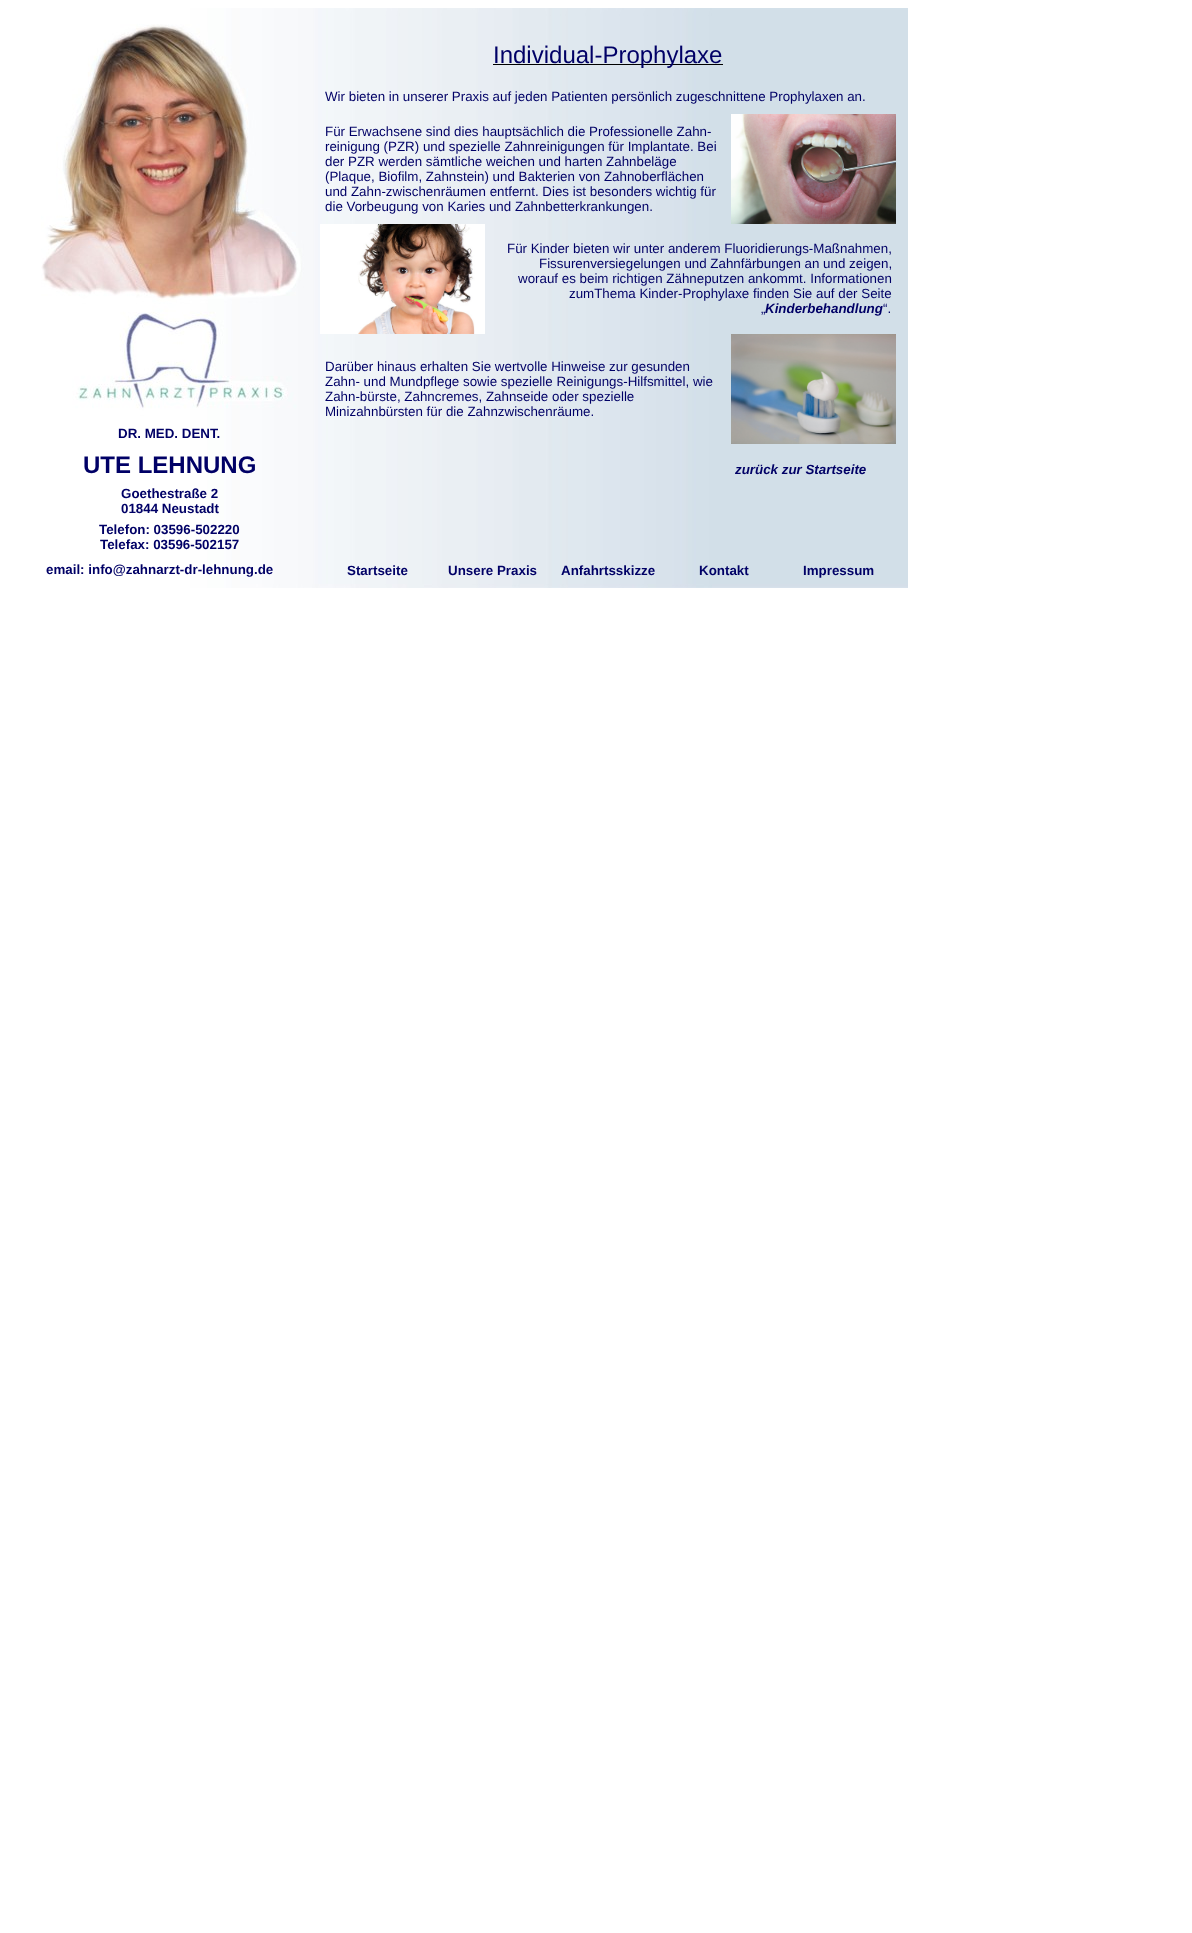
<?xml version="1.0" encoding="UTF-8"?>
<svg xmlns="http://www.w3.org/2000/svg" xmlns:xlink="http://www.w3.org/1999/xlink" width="1192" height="1933">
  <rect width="100%" height="100%" fill="#ffffff" />
  <image x="41" y="8" width="867" height="580" xlink:href="image1.png" />
  <rect x="493" y="64" width="230" height="1" fill="#000000" />
  <image x="731" y="114" width="165" height="110" xlink:href="image2.png" />
  <image x="320" y="224" width="165" height="110" xlink:href="image3.png" />
  <image x="731" y="334" width="165" height="110" xlink:href="image4.png" />
  <text x="118" y="438" style="font-family: Liberation Sans; font-size: 13.35px; font-weight: bold; fill: #000066">DR. MED. DENT.</text>
  <text x="83" y="473" style="font-family: Liberation Sans; font-size: 24px; font-weight: bold; fill: #000066">UTE LEHNUNG</text>
  <text x="121" y="498" style="font-family: Liberation Sans; font-size: 13.35px; font-weight: bold; fill: #000066">Goethestraße 2</text>
  <text x="121" y="513" style="font-family: Liberation Sans; font-size: 13.35px; font-weight: bold; fill: #000066">01844 Neustadt</text>
  <text x="99" y="534" style="font-family: Liberation Sans; font-size: 13.35px; font-weight: bold; fill: #000066">Telefon: 03596-502220</text>
  <text x="100" y="549" style="font-family: Liberation Sans; font-size: 13.35px; font-weight: bold; fill: #000066">Telefax: 03596-502157</text>
  <text x="46" y="574" style="font-family: Liberation Sans; font-size: 13.35px; font-weight: bold; fill: #000066">email: info@zahnarzt-dr-lehnung.de</text>
  <text x="493" y="63" style="font-family: Liberation Sans; font-size: 24px; fill: #000066">Individual-Prophylaxe</text>
  <text x="325" y="101" style="font-family: Liberation Sans; font-size: 13.35px; fill: #000066">Wir bieten in unserer Praxis auf jeden Patienten persönlich zugeschnittene Prophylaxen an.</text>
  <text x="325" y="136" style="font-family: Liberation Sans; font-size: 13.35px; fill: #000066">Für Erwachsene sind dies hauptsächlich die Professionelle Zahn-</text>
  <text x="325" y="151" style="font-family: Liberation Sans; font-size: 13.35px; fill: #000066">reinigung (PZR) und spezielle Zahnreinigungen für Implantate. Bei</text>
  <text x="325" y="166" style="font-family: Liberation Sans; font-size: 13.35px; fill: #000066">der PZR werden sämtliche weichen und harten Zahnbeläge</text>
  <text x="325" y="181" style="font-family: Liberation Sans; font-size: 13.35px; fill: #000066">(Plaque, Biofilm, Zahnstein) und Bakterien von Zahnoberflächen</text>
  <text x="325" y="196" style="font-family: Liberation Sans; font-size: 13.35px; fill: #000066">und Zahn-zwischenräumen entfernt. Dies ist besonders wichtig für</text>
  <text x="325" y="211" style="font-family: Liberation Sans; font-size: 13.35px; fill: #000066">die Vorbeugung von Karies und Zahnbetterkrankungen.</text>
  <text x="507" y="253" style="font-family: Liberation Sans; font-size: 13.35px; fill: #000066">Für Kinder bieten wir unter anderem Fluoridierungs-Maßnahmen,</text>
  <text x="539" y="268" style="font-family: Liberation Sans; font-size: 13.35px; fill: #000066">Fissurenversiegelungen und Zahnfärbungen an und zeigen,</text>
  <text x="518" y="283" style="font-family: Liberation Sans; font-size: 13.35px; fill: #000066">worauf es beim richtigen Zähneputzen ankommt. Informationen</text>
  <text x="569" y="298" style="font-family: Liberation Sans; font-size: 13.35px; fill: #000066">zumThema Kinder-Prophylaxe finden Sie auf der Seite</text>
  <text x="761" y="313" style="font-family: Liberation Sans; font-size: 13.35px; fill: #000066">„</text>
  <text x="765" y="313" style="font-family: Liberation Sans; font-size: 13.35px; font-weight: bold; font-style: italic; fill: #000066">Kinderbehandlung</text>
  <text x="883" y="313" style="font-family: Liberation Sans; font-size: 13.35px; fill: #000066">“.</text>
  <text x="325" y="371" style="font-family: Liberation Sans; font-size: 13.35px; fill: #000066">Darüber hinaus erhalten Sie wertvolle Hinweise zur gesunden</text>
  <text x="325" y="386" style="font-family: Liberation Sans; font-size: 13.35px; fill: #000066">Zahn- und Mundpflege sowie spezielle Reinigungs-Hilfsmittel, wie</text>
  <text x="325" y="401" style="font-family: Liberation Sans; font-size: 13.35px; fill: #000066">Zahn-bürste, Zahncremes, Zahnseide oder spezielle</text>
  <text x="325" y="416" style="font-family: Liberation Sans; font-size: 13.35px; fill: #000066">Minizahnbürsten für die Zahnzwischenräume.</text>
  <text x="735" y="474" style="font-family: Liberation Sans; font-size: 13.35px; font-weight: bold; font-style: italic; fill: #000066">zurück zur Startseite</text>
  <text x="347" y="575" style="font-family: Liberation Sans; font-size: 13.35px; font-weight: bold; fill: #000066">Startseite</text>
  <text x="448" y="575" style="font-family: Liberation Sans; font-size: 13.35px; font-weight: bold; fill: #000066">Unsere Praxis</text>
  <text x="561" y="575" style="font-family: Liberation Sans; font-size: 13.35px; font-weight: bold; fill: #000066">Anfahrtsskizze</text>
  <text x="699" y="575" style="font-family: Liberation Sans; font-size: 13.35px; font-weight: bold; fill: #000066">Kontakt</text>
  <text x="803" y="575" style="font-family: Liberation Sans; font-size: 13.35px; font-weight: bold; fill: #000066">Impressum</text>
</svg>
